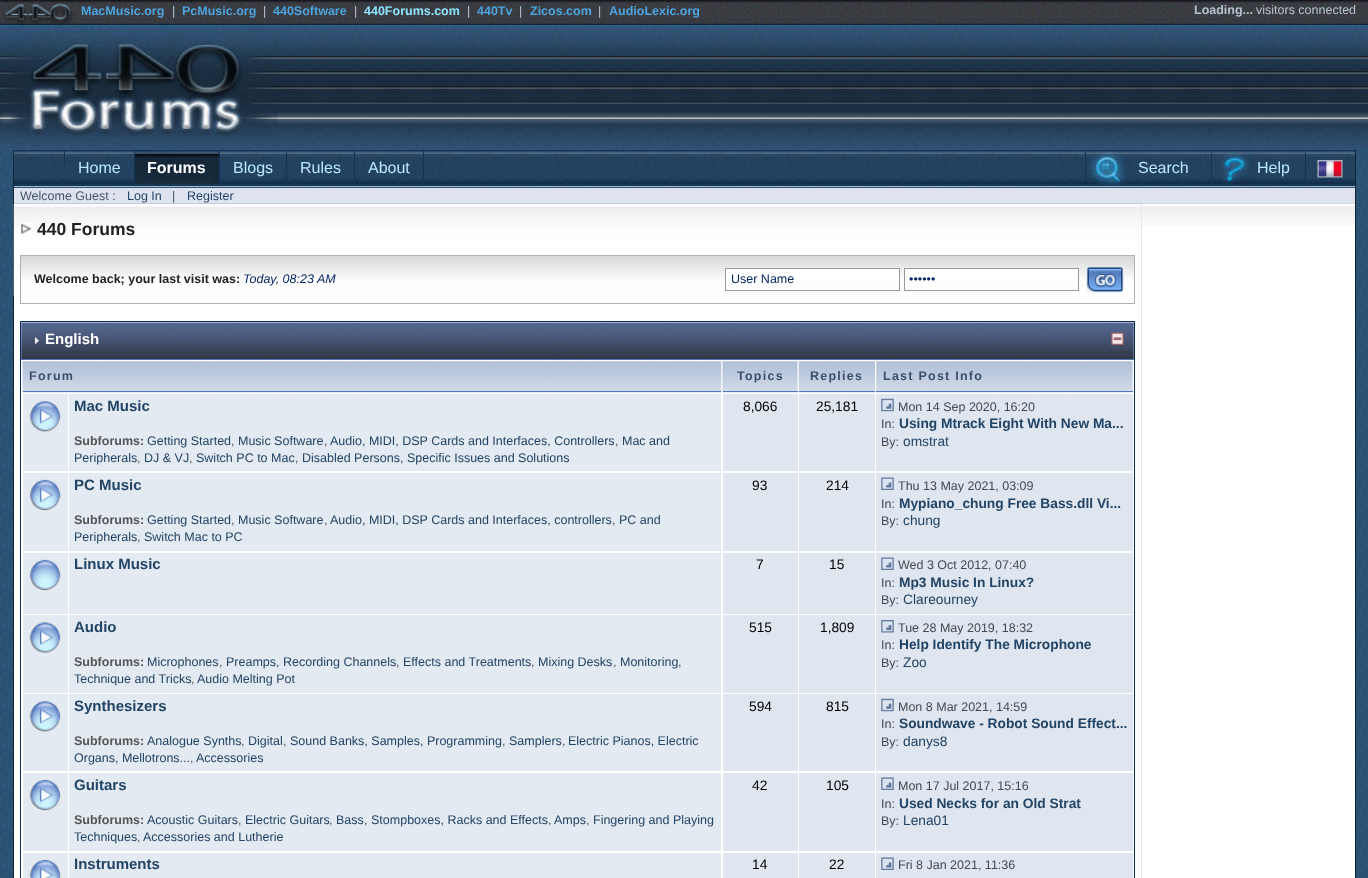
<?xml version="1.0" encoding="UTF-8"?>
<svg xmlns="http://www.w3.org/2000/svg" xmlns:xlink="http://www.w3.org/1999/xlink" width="1368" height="878">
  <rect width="100%" height="100%" fill="#ffffff" />
  <image x="0" y="150" width="1368" height="728" xlink:href="image1.png" />
  <image x="0" y="0" width="1368" height="25" xlink:href="image2.png" />
  <image x="0" y="0" width="75" height="24" xlink:href="image3.png" />
  <image x="277" y="25" width="1091" height="125" xlink:href="image4.png" />
  <image x="0" y="25" width="278" height="125" xlink:href="image5.png" />
  <rect x="1355" y="150" width="1" height="728" fill="#112233" />
  <rect x="13" y="150" width="1" height="728" fill="#112233" />
  <image x="13" y="151" width="1342" height="34" xlink:href="image6.png" />
  <rect x="14" y="150" width="1341" height="1" fill="#113355" />
  <rect x="14" y="185" width="1341" height="1" fill="#113355" />
  <rect x="64" y="151" width="1" height="14" fill="#113355" />
  <rect x="134" y="151" width="1" height="33" fill="#113355" />
  <image x="135" y="151" width="84" height="33" xlink:href="image7.png" />
  <rect x="219" y="151" width="1" height="33" fill="#113355" />
  <rect x="286" y="151" width="1" height="33" fill="#113355" />
  <rect x="354" y="151" width="1" height="33" fill="#113355" />
  <rect x="423" y="151" width="1" height="33" fill="#113355" />
  <rect x="1211" y="151" width="1" height="34" fill="#113355" />
  <rect x="1085" y="151" width="1" height="34" fill="#113355" />
  <image x="1086" y="151" width="126" height="34" xlink:href="image8.png" />
  <rect x="1305" y="151" width="1" height="34" fill="#113355" />
  <image x="1213" y="151" width="92" height="34" xlink:href="image9.png" />
  <image x="1317" y="160" width="26" height="18" xlink:href="image10.png" />
  <rect x="14" y="188" width="1341" height="15" fill="#dfe3ef" />
  <rect x="14" y="186" width="1341" height="1" fill="#aabbcc" />
  <rect x="14" y="203" width="1341" height="1" fill="#aabbcc" />
  <rect x="14" y="296" width="1127" height="582" fill="#ffffff" />
  <image x="13" y="203" width="1342" height="94" xlink:href="image11.png" />
  <image x="20" y="223" width="12" height="11" xlink:href="image12.png" />
  <image x="21" y="256" width="1113" height="47" xlink:href="image13.png" />
  <rect x="20.5" y="255.5" width="1114" height="48" fill="none" stroke="#b0b0b0" />
  <rect x="726" y="269" width="173" height="12" fill="#ffffff" />
  <rect x="725.5" y="268.5" width="174" height="22" fill="none" stroke="#999999" />
  <rect x="905" y="269" width="173" height="12" fill="#ffffff" />
  <rect x="904.5" y="268.5" width="174" height="22" fill="none" stroke="#999999" />
  <image x="1086" y="266" width="38" height="27" xlink:href="image14.png" />
  <rect x="20.5" y="321.5" width="1114" height="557" fill="none" stroke="#072a66" />
  <image x="21" y="322" width="1113" height="37" xlink:href="image15.png" />
  <rect x="21" y="359" width="1113" height="1" fill="#5176b5" />
  <image x="34" y="337" width="5" height="7" xlink:href="image16.png" />
  <image x="1111" y="332" width="13" height="13" xlink:href="image17.png" />
  <image x="22" y="361" width="700" height="32" xlink:href="image18.png" />
  <rect x="23" y="391" width="698" height="1" fill="#5176b5" />
  <image x="722" y="361" width="76" height="32" xlink:href="image19.png" />
  <rect x="723" y="391" width="75" height="1" fill="#5176b5" />
  <image x="798" y="361" width="77" height="32" xlink:href="image20.png" />
  <rect x="799" y="391" width="76" height="1" fill="#5176b5" />
  <image x="876" y="361" width="257" height="32" xlink:href="image21.png" />
  <rect x="876" y="391" width="257" height="1" fill="#5176b5" />
  <rect x="23" y="394" width="45" height="77" fill="#e4eaf2" />
  <image x="29" y="401" width="32" height="31" xlink:href="image22.png" />
  <rect x="69" y="394" width="652" height="77" fill="#e4eaf2" />
  <rect x="723" y="394" width="75" height="77" fill="#dfe6ef" />
  <rect x="799" y="394" width="76" height="77" fill="#dfe6ef" />
  <rect x="876" y="394" width="257" height="77" fill="#dfe6ef" />
  <image x="881" y="398" width="13" height="14" xlink:href="image23.png" />
  <rect x="23" y="473" width="45" height="78" fill="#e4eaf2" />
  <image x="29" y="479" width="32" height="32" xlink:href="image24.png" />
  <rect x="69" y="473" width="652" height="78" fill="#e4eaf2" />
  <rect x="723" y="473" width="75" height="78" fill="#dfe6ef" />
  <rect x="799" y="473" width="76" height="78" fill="#dfe6ef" />
  <rect x="876" y="473" width="257" height="78" fill="#dfe6ef" />
  <image x="881" y="477" width="13" height="13" xlink:href="image25.png" />
  <rect x="23" y="553" width="45" height="61" fill="#e4eaf2" />
  <image x="29" y="559" width="32" height="32" xlink:href="image26.png" />
  <rect x="69" y="553" width="652" height="61" fill="#e4eaf2" />
  <rect x="723" y="553" width="75" height="61" fill="#dfe6ef" />
  <rect x="799" y="553" width="76" height="61" fill="#dfe6ef" />
  <rect x="876" y="553" width="257" height="61" fill="#dfe6ef" />
  <image x="881" y="557" width="13" height="13" xlink:href="image25.png" />
  <rect x="23" y="615" width="45" height="78" fill="#e4eaf2" />
  <image x="29" y="622" width="32" height="31" xlink:href="image27.png" />
  <rect x="69" y="615" width="652" height="78" fill="#e4eaf2" />
  <rect x="723" y="615" width="75" height="78" fill="#dfe6ef" />
  <rect x="799" y="615" width="76" height="78" fill="#dfe6ef" />
  <rect x="876" y="615" width="257" height="78" fill="#dfe6ef" />
  <image x="881" y="620" width="13" height="13" xlink:href="image28.png" />
  <rect x="23" y="694" width="45" height="77" fill="#e4eaf2" />
  <image x="29" y="701" width="32" height="31" xlink:href="image22.png" />
  <rect x="69" y="694" width="652" height="77" fill="#e4eaf2" />
  <rect x="723" y="694" width="75" height="77" fill="#dfe6ef" />
  <rect x="799" y="694" width="76" height="77" fill="#dfe6ef" />
  <rect x="876" y="694" width="257" height="77" fill="#dfe6ef" />
  <image x="881" y="698" width="13" height="14" xlink:href="image23.png" />
  <rect x="23" y="773" width="45" height="78" fill="#e4eaf2" />
  <image x="29" y="779" width="32" height="32" xlink:href="image29.png" />
  <rect x="69" y="773" width="652" height="78" fill="#e4eaf2" />
  <rect x="723" y="773" width="75" height="78" fill="#dfe6ef" />
  <rect x="799" y="773" width="76" height="78" fill="#dfe6ef" />
  <rect x="876" y="773" width="257" height="78" fill="#dfe6ef" />
  <image x="881" y="777" width="13" height="13" xlink:href="image30.png" />
  <rect x="23" y="853" width="45" height="25" fill="#e4eaf2" />
  <image x="29" y="859" width="32" height="19" xlink:href="image31.png" />
  <rect x="69" y="853" width="652" height="25" fill="#e4eaf2" />
  <rect x="723" y="853" width="75" height="25" fill="#dfe6ef" />
  <rect x="799" y="853" width="76" height="25" fill="#dfe6ef" />
  <rect x="876" y="853" width="257" height="25" fill="#dfe6ef" />
  <image x="881" y="857" width="13" height="13" xlink:href="image25.png" />
  <rect x="1142" y="227" width="213" height="651" fill="#ffffff" />
  <image x="1141" y="203" width="214" height="24" xlink:href="image32.png" />
  <rect x="1141" y="204" width="1" height="674" fill="#e5e5ef" />
  <text x="81" y="15" style="font-family: Liberation Sans; font-size: 12.5px; font-weight: bold; fill: #4ea4de">MacMusic.org</text>
  <text x="172" y="15" style="font-family: Liberation Sans; font-size: 12.5px; fill: #b7c3d1">|</text>
  <text x="182" y="15" style="font-family: Liberation Sans; font-size: 12.5px; font-weight: bold; fill: #4ea4de">PcMusic.org</text>
  <text x="263" y="15" style="font-family: Liberation Sans; font-size: 12.5px; fill: #b7c3d1">|</text>
  <text x="273" y="15" style="font-family: Liberation Sans; font-size: 12.5px; font-weight: bold; fill: #4ea4de">440Software</text>
  <text x="354" y="15" style="font-family: Liberation Sans; font-size: 12.5px; fill: #b7c3d1">|</text>
  <text x="364" y="15" style="font-family: Liberation Sans; font-size: 12.5px; font-weight: bold; fill: #8ee4ff">440Forums.com</text>
  <text x="467" y="15" style="font-family: Liberation Sans; font-size: 12.5px; fill: #b7c3d1">|</text>
  <text x="477" y="15" style="font-family: Liberation Sans; font-size: 12.5px; font-weight: bold; fill: #4ea4de">440Tv</text>
  <text x="519" y="15" style="font-family: Liberation Sans; font-size: 12.5px; fill: #b7c3d1">|</text>
  <text x="530" y="15" style="font-family: Liberation Sans; font-size: 12.5px; font-weight: bold; fill: #4ea4de">Zicos.com</text>
  <text x="598" y="15" style="font-family: Liberation Sans; font-size: 12.5px; fill: #b7c3d1">|</text>
  <text x="609" y="15" style="font-family: Liberation Sans; font-size: 12.5px; font-weight: bold; fill: #4ea4de">AudioLexic.org</text>
  <text x="1194" y="14" style="font-family: Liberation Sans; font-size: 12.5px; font-weight: bold; fill: #b7c3d1">Loading...</text>
  <text x="1256" y="14" style="font-family: Liberation Sans; font-size: 12.5px; fill: #b7c3d1">visitors connected</text>
  <text x="78" y="173" style="font-family: Liberation Sans; font-size: 16px; fill: #b9e8ff">Home</text>
  <text x="147" y="173" style="font-family: Liberation Sans; font-size: 16px; font-weight: bold; fill: #ffffff">Forums</text>
  <text x="233" y="173" style="font-family: Liberation Sans; font-size: 16px; fill: #b9e8ff">Blogs</text>
  <text x="300" y="173" style="font-family: Liberation Sans; font-size: 16px; fill: #b9e8ff">Rules</text>
  <text x="368" y="173" style="font-family: Liberation Sans; font-size: 16px; fill: #b9e8ff">About</text>
  <text x="1138" y="173" style="font-family: Liberation Sans; font-size: 16px; fill: #b9e8ff">Search</text>
  <text x="1257" y="173" style="font-family: Liberation Sans; font-size: 16px; fill: #b9e8ff">Help</text>
  <text x="20" y="200" style="font-family: Liberation Sans; font-size: 12.5px; fill: #445566">Welcome Guest :</text>
  <text x="127" y="200" style="font-family: Liberation Sans; font-size: 12.5px; fill: #224466">Log In</text>
  <text x="172" y="200" style="font-family: Liberation Sans; font-size: 12.5px; fill: #445566">|</text>
  <text x="187" y="200" style="font-family: Liberation Sans; font-size: 12.5px; fill: #224466">Register</text>
  <text x="37" y="235" style="font-family: Liberation Sans; font-size: 17.5px; font-weight: bold; fill: #222222">440 Forums</text>
  <text x="34" y="283" style="font-family: Liberation Sans; font-size: 12.5px; font-weight: bold; fill: #222222">Welcome back; your last visit was:</text>
  <text x="243" y="283" style="font-family: Liberation Sans; font-size: 12.5px; font-style: italic; fill: #072a66">Today, 08:23 AM</text>
  <text x="731" y="283" style="font-family: Liberation Sans; font-size: 12.5px; fill: #072a66">User Name</text>
  <text x="909" y="283" style="font-family: Liberation Sans; font-size: 12.5px; fill: #072a66">••••••</text>
  <text x="45" y="344" style="font-family: Liberation Sans; font-size: 15px; font-weight: bold; fill: #ffffff">English</text>
  <text x="29" y="380" style="font-family: Liberation Sans; font-size: 12.5px; font-weight: bold; letter-spacing: 1.25px; fill: #3a4f6c">Forum</text>
  <text x="737" y="380" style="font-family: Liberation Sans; font-size: 12.5px; font-weight: bold; letter-spacing: 1.25px; fill: #3a4f6c">Topics</text>
  <text x="810" y="380" style="font-family: Liberation Sans; font-size: 12.5px; font-weight: bold; letter-spacing: 1.25px; fill: #3a4f6c">Replies</text>
  <text x="883" y="380" style="font-family: Liberation Sans; font-size: 12.5px; font-weight: bold; letter-spacing: 1.25px; fill: #3a4f6c">Last Post Info</text>
  <text x="74" y="411" style="font-family: Liberation Sans; font-size: 15px; font-weight: bold; fill: #224466">Mac Music</text>
  <text x="74" y="445" style="font-family: Liberation Sans; font-size: 12.5px; font-weight: bold; fill: #555555">Subforums:</text>
  <text x="147" y="445" style="font-family: Liberation Sans; font-size: 12.5px; fill: #224466">Getting Started</text>
  <text x="231" y="445" style="font-family: Liberation Sans; font-size: 12.5px; fill: #555555">,</text>
  <text x="238" y="445" style="font-family: Liberation Sans; font-size: 12.5px; fill: #224466">Music Software</text>
  <text x="324" y="445" style="font-family: Liberation Sans; font-size: 12.5px; fill: #555555">,</text>
  <text x="330" y="445" style="font-family: Liberation Sans; font-size: 12.5px; fill: #224466">Audio, MIDI, DSP Cards and Interfaces, Controllers</text>
  <text x="615" y="445" style="font-family: Liberation Sans; font-size: 12.5px; fill: #555555">,</text>
  <text x="622" y="445" style="font-family: Liberation Sans; font-size: 12.5px; fill: #224466">Mac and</text>
  <text x="74" y="462" style="font-family: Liberation Sans; font-size: 12.5px; fill: #224466">Peripherals</text>
  <text x="137" y="462" style="font-family: Liberation Sans; font-size: 12.5px; fill: #555555">,</text>
  <text x="144" y="462" style="font-family: Liberation Sans; font-size: 12.5px; fill: #224466">DJ &amp; VJ</text>
  <text x="189" y="462" style="font-family: Liberation Sans; font-size: 12.5px; fill: #555555">,</text>
  <text x="196" y="462" style="font-family: Liberation Sans; font-size: 12.5px; fill: #224466">Switch PC to Mac</text>
  <text x="295" y="462" style="font-family: Liberation Sans; font-size: 12.5px; fill: #555555">,</text>
  <text x="302" y="462" style="font-family: Liberation Sans; font-size: 12.5px; fill: #224466">Disabled Persons, Specific Issues and Solutions</text>
  <text x="743" y="411" style="font-family: Liberation Sans; font-size: 13.75px; fill: #000000">8,066</text>
  <text x="816" y="411" style="font-family: Liberation Sans; font-size: 13.75px; fill: #000000">25,181</text>
  <text x="898" y="411" style="font-family: Liberation Sans; font-size: 12.5px; fill: #434951">Mon 14 Sep 2020, 16:20</text>
  <text x="881" y="428" style="font-family: Liberation Sans; font-size: 12.5px; fill: #434951">In:</text>
  <text x="899" y="428" style="font-family: Liberation Sans; font-size: 13.75px; font-weight: bold; fill: #224466">Using Mtrack Eight With New Ma...</text>
  <text x="881" y="446" style="font-family: Liberation Sans; font-size: 12.5px; fill: #434951">By:</text>
  <text x="903" y="446" style="font-family: Liberation Sans; font-size: 13.75px; fill: #224466">omstrat</text>
  <text x="74" y="490" style="font-family: Liberation Sans; font-size: 15px; font-weight: bold; fill: #224466">PC Music</text>
  <text x="74" y="524" style="font-family: Liberation Sans; font-size: 12.5px; font-weight: bold; fill: #555555">Subforums:</text>
  <text x="147" y="524" style="font-family: Liberation Sans; font-size: 12.5px; fill: #224466">Getting Started</text>
  <text x="231" y="524" style="font-family: Liberation Sans; font-size: 12.5px; fill: #555555">,</text>
  <text x="238" y="524" style="font-family: Liberation Sans; font-size: 12.5px; fill: #224466">Music Software</text>
  <text x="324" y="524" style="font-family: Liberation Sans; font-size: 12.5px; fill: #555555">,</text>
  <text x="330" y="524" style="font-family: Liberation Sans; font-size: 12.5px; fill: #224466">Audio, MIDI, DSP Cards and Interfaces, controllers</text>
  <text x="612" y="524" style="font-family: Liberation Sans; font-size: 12.5px; fill: #555555">,</text>
  <text x="619" y="524" style="font-family: Liberation Sans; font-size: 12.5px; fill: #224466">PC and</text>
  <text x="74" y="541" style="font-family: Liberation Sans; font-size: 12.5px; fill: #224466">Peripherals</text>
  <text x="137" y="541" style="font-family: Liberation Sans; font-size: 12.5px; fill: #555555">,</text>
  <text x="144" y="541" style="font-family: Liberation Sans; font-size: 12.5px; fill: #224466">Switch Mac to PC</text>
  <text x="752" y="490" style="font-family: Liberation Sans; font-size: 13.75px; fill: #000000">93</text>
  <text x="826" y="490" style="font-family: Liberation Sans; font-size: 13.75px; fill: #000000">214</text>
  <text x="898" y="490" style="font-family: Liberation Sans; font-size: 12.5px; fill: #434951">Thu 13 May 2021, 03:09</text>
  <text x="881" y="508" style="font-family: Liberation Sans; font-size: 12.5px; fill: #434951">In:</text>
  <text x="899" y="508" style="font-family: Liberation Sans; font-size: 13.75px; font-weight: bold; fill: #224466">Mypiano_chung Free Bass.dll Vi...</text>
  <text x="881" y="525" style="font-family: Liberation Sans; font-size: 12.5px; fill: #434951">By:</text>
  <text x="903" y="525" style="font-family: Liberation Sans; font-size: 13.75px; fill: #224466">chung</text>
  <text x="74" y="569" style="font-family: Liberation Sans; font-size: 15px; font-weight: bold; fill: #224466">Linux Music</text>
  <text x="756" y="569" style="font-family: Liberation Sans; font-size: 13.75px; fill: #000000">7</text>
  <text x="829" y="569" style="font-family: Liberation Sans; font-size: 13.75px; fill: #000000">15</text>
  <text x="898" y="569" style="font-family: Liberation Sans; font-size: 12.5px; fill: #434951">Wed 3 Oct 2012, 07:40</text>
  <text x="881" y="587" style="font-family: Liberation Sans; font-size: 12.5px; fill: #434951">In:</text>
  <text x="899" y="587" style="font-family: Liberation Sans; font-size: 13.75px; font-weight: bold; fill: #224466">Mp3 Music In Linux?</text>
  <text x="881" y="604" style="font-family: Liberation Sans; font-size: 12.5px; fill: #434951">By:</text>
  <text x="903" y="604" style="font-family: Liberation Sans; font-size: 13.75px; fill: #224466">Clareourney</text>
  <text x="74" y="632" style="font-family: Liberation Sans; font-size: 15px; font-weight: bold; fill: #224466">Audio</text>
  <text x="74" y="666" style="font-family: Liberation Sans; font-size: 12.5px; font-weight: bold; fill: #555555">Subforums:</text>
  <text x="147" y="666" style="font-family: Liberation Sans; font-size: 12.5px; fill: #224466">Microphones</text>
  <text x="219" y="666" style="font-family: Liberation Sans; font-size: 12.5px; fill: #555555">,</text>
  <text x="226" y="666" style="font-family: Liberation Sans; font-size: 12.5px; fill: #224466">Preamps, Recording Channels</text>
  <text x="396" y="666" style="font-family: Liberation Sans; font-size: 12.5px; fill: #555555">,</text>
  <text x="403" y="666" style="font-family: Liberation Sans; font-size: 12.5px; fill: #224466">Effects and Treatments</text>
  <text x="531" y="666" style="font-family: Liberation Sans; font-size: 12.5px; fill: #555555">,</text>
  <text x="538" y="666" style="font-family: Liberation Sans; font-size: 12.5px; fill: #224466">Mixing Desks</text>
  <text x="613" y="666" style="font-family: Liberation Sans; font-size: 12.5px; fill: #555555">,</text>
  <text x="620" y="666" style="font-family: Liberation Sans; font-size: 12.5px; fill: #224466">Monitoring</text>
  <text x="678" y="666" style="font-family: Liberation Sans; font-size: 12.5px; fill: #555555">,</text>
  <text x="74" y="683" style="font-family: Liberation Sans; font-size: 12.5px; fill: #224466">Technique and Tricks</text>
  <text x="191" y="683" style="font-family: Liberation Sans; font-size: 12.5px; fill: #555555">,</text>
  <text x="197" y="683" style="font-family: Liberation Sans; font-size: 12.5px; fill: #224466">Audio Melting Pot</text>
  <text x="749" y="632" style="font-family: Liberation Sans; font-size: 13.75px; fill: #000000">515</text>
  <text x="820" y="632" style="font-family: Liberation Sans; font-size: 13.75px; fill: #000000">1,809</text>
  <text x="898" y="632" style="font-family: Liberation Sans; font-size: 12.5px; fill: #434951">Tue 28 May 2019, 18:32</text>
  <text x="881" y="649" style="font-family: Liberation Sans; font-size: 12.5px; fill: #434951">In:</text>
  <text x="899" y="649" style="font-family: Liberation Sans; font-size: 13.75px; font-weight: bold; fill: #224466">Help Identify The Microphone</text>
  <text x="881" y="667" style="font-family: Liberation Sans; font-size: 12.5px; fill: #434951">By:</text>
  <text x="903" y="667" style="font-family: Liberation Sans; font-size: 13.75px; fill: #224466">Zoo</text>
  <text x="74" y="711" style="font-family: Liberation Sans; font-size: 15px; font-weight: bold; fill: #224466">Synthesizers</text>
  <text x="74" y="745" style="font-family: Liberation Sans; font-size: 12.5px; font-weight: bold; fill: #555555">Subforums:</text>
  <text x="147" y="745" style="font-family: Liberation Sans; font-size: 12.5px; fill: #224466">Analogue Synths</text>
  <text x="241" y="745" style="font-family: Liberation Sans; font-size: 12.5px; fill: #555555">,</text>
  <text x="248" y="745" style="font-family: Liberation Sans; font-size: 12.5px; fill: #224466">Digital</text>
  <text x="283" y="745" style="font-family: Liberation Sans; font-size: 12.5px; fill: #555555">,</text>
  <text x="290" y="745" style="font-family: Liberation Sans; font-size: 12.5px; fill: #224466">Sound Banks, Samples, Programming</text>
  <text x="502" y="745" style="font-family: Liberation Sans; font-size: 12.5px; fill: #555555">,</text>
  <text x="509" y="745" style="font-family: Liberation Sans; font-size: 12.5px; fill: #224466">Samplers</text>
  <text x="562" y="745" style="font-family: Liberation Sans; font-size: 12.5px; fill: #555555">,</text>
  <text x="568" y="745" style="font-family: Liberation Sans; font-size: 12.5px; fill: #224466">Electric Pianos, Electric</text>
  <text x="74" y="762" style="font-family: Liberation Sans; font-size: 12.5px; fill: #224466">Organs, Mellotrons...</text>
  <text x="190" y="762" style="font-family: Liberation Sans; font-size: 12.5px; fill: #555555">,</text>
  <text x="196" y="762" style="font-family: Liberation Sans; font-size: 12.5px; fill: #224466">Accessories</text>
  <text x="749" y="711" style="font-family: Liberation Sans; font-size: 13.75px; fill: #000000">594</text>
  <text x="826" y="711" style="font-family: Liberation Sans; font-size: 13.75px; fill: #000000">815</text>
  <text x="898" y="711" style="font-family: Liberation Sans; font-size: 12.5px; fill: #434951">Mon 8 Mar 2021, 14:59</text>
  <text x="881" y="728" style="font-family: Liberation Sans; font-size: 12.5px; fill: #434951">In:</text>
  <text x="899" y="728" style="font-family: Liberation Sans; font-size: 13.75px; font-weight: bold; fill: #224466">Soundwave - Robot Sound Effect...</text>
  <text x="881" y="746" style="font-family: Liberation Sans; font-size: 12.5px; fill: #434951">By:</text>
  <text x="903" y="746" style="font-family: Liberation Sans; font-size: 13.75px; fill: #224466">danys8</text>
  <text x="74" y="790" style="font-family: Liberation Sans; font-size: 15px; font-weight: bold; fill: #224466">Guitars</text>
  <text x="74" y="824" style="font-family: Liberation Sans; font-size: 12.5px; font-weight: bold; fill: #555555">Subforums:</text>
  <text x="147" y="824" style="font-family: Liberation Sans; font-size: 12.5px; fill: #224466">Acoustic Guitars</text>
  <text x="238" y="824" style="font-family: Liberation Sans; font-size: 12.5px; fill: #555555">,</text>
  <text x="245" y="824" style="font-family: Liberation Sans; font-size: 12.5px; fill: #224466">Electric Guitars</text>
  <text x="329" y="824" style="font-family: Liberation Sans; font-size: 12.5px; fill: #555555">,</text>
  <text x="336" y="824" style="font-family: Liberation Sans; font-size: 12.5px; fill: #224466">Bass</text>
  <text x="364" y="824" style="font-family: Liberation Sans; font-size: 12.5px; fill: #555555">,</text>
  <text x="371" y="824" style="font-family: Liberation Sans; font-size: 12.5px; fill: #224466">Stompboxes, Racks and Effects</text>
  <text x="548" y="824" style="font-family: Liberation Sans; font-size: 12.5px; fill: #555555">,</text>
  <text x="554" y="824" style="font-family: Liberation Sans; font-size: 12.5px; fill: #224466">Amps</text>
  <text x="586" y="824" style="font-family: Liberation Sans; font-size: 12.5px; fill: #555555">,</text>
  <text x="593" y="824" style="font-family: Liberation Sans; font-size: 12.5px; fill: #224466">Fingering and Playing</text>
  <text x="74" y="841" style="font-family: Liberation Sans; font-size: 12.5px; fill: #224466">Techniques</text>
  <text x="137" y="841" style="font-family: Liberation Sans; font-size: 12.5px; fill: #555555">,</text>
  <text x="143" y="841" style="font-family: Liberation Sans; font-size: 12.5px; fill: #224466">Accessories and Lutherie</text>
  <text x="752" y="790" style="font-family: Liberation Sans; font-size: 13.75px; fill: #000000">42</text>
  <text x="826" y="790" style="font-family: Liberation Sans; font-size: 13.75px; fill: #000000">105</text>
  <text x="898" y="790" style="font-family: Liberation Sans; font-size: 12.5px; fill: #434951">Mon 17 Jul 2017, 15:16</text>
  <text x="881" y="808" style="font-family: Liberation Sans; font-size: 12.5px; fill: #434951">In:</text>
  <text x="899" y="808" style="font-family: Liberation Sans; font-size: 13.75px; font-weight: bold; fill: #224466">Used Necks for an Old Strat</text>
  <text x="881" y="825" style="font-family: Liberation Sans; font-size: 12.5px; fill: #434951">By:</text>
  <text x="903" y="825" style="font-family: Liberation Sans; font-size: 13.75px; fill: #224466">Lena01</text>
  <text x="74" y="869" style="font-family: Liberation Sans; font-size: 15px; font-weight: bold; fill: #224466">Instruments</text>
  <text x="752" y="869" style="font-family: Liberation Sans; font-size: 13.75px; fill: #000000">14</text>
  <text x="829" y="869" style="font-family: Liberation Sans; font-size: 13.75px; fill: #000000">22</text>
  <text x="898" y="869" style="font-family: Liberation Sans; font-size: 12.5px; fill: #434951">Fri 8 Jan 2021, 11:36</text>
</svg>
